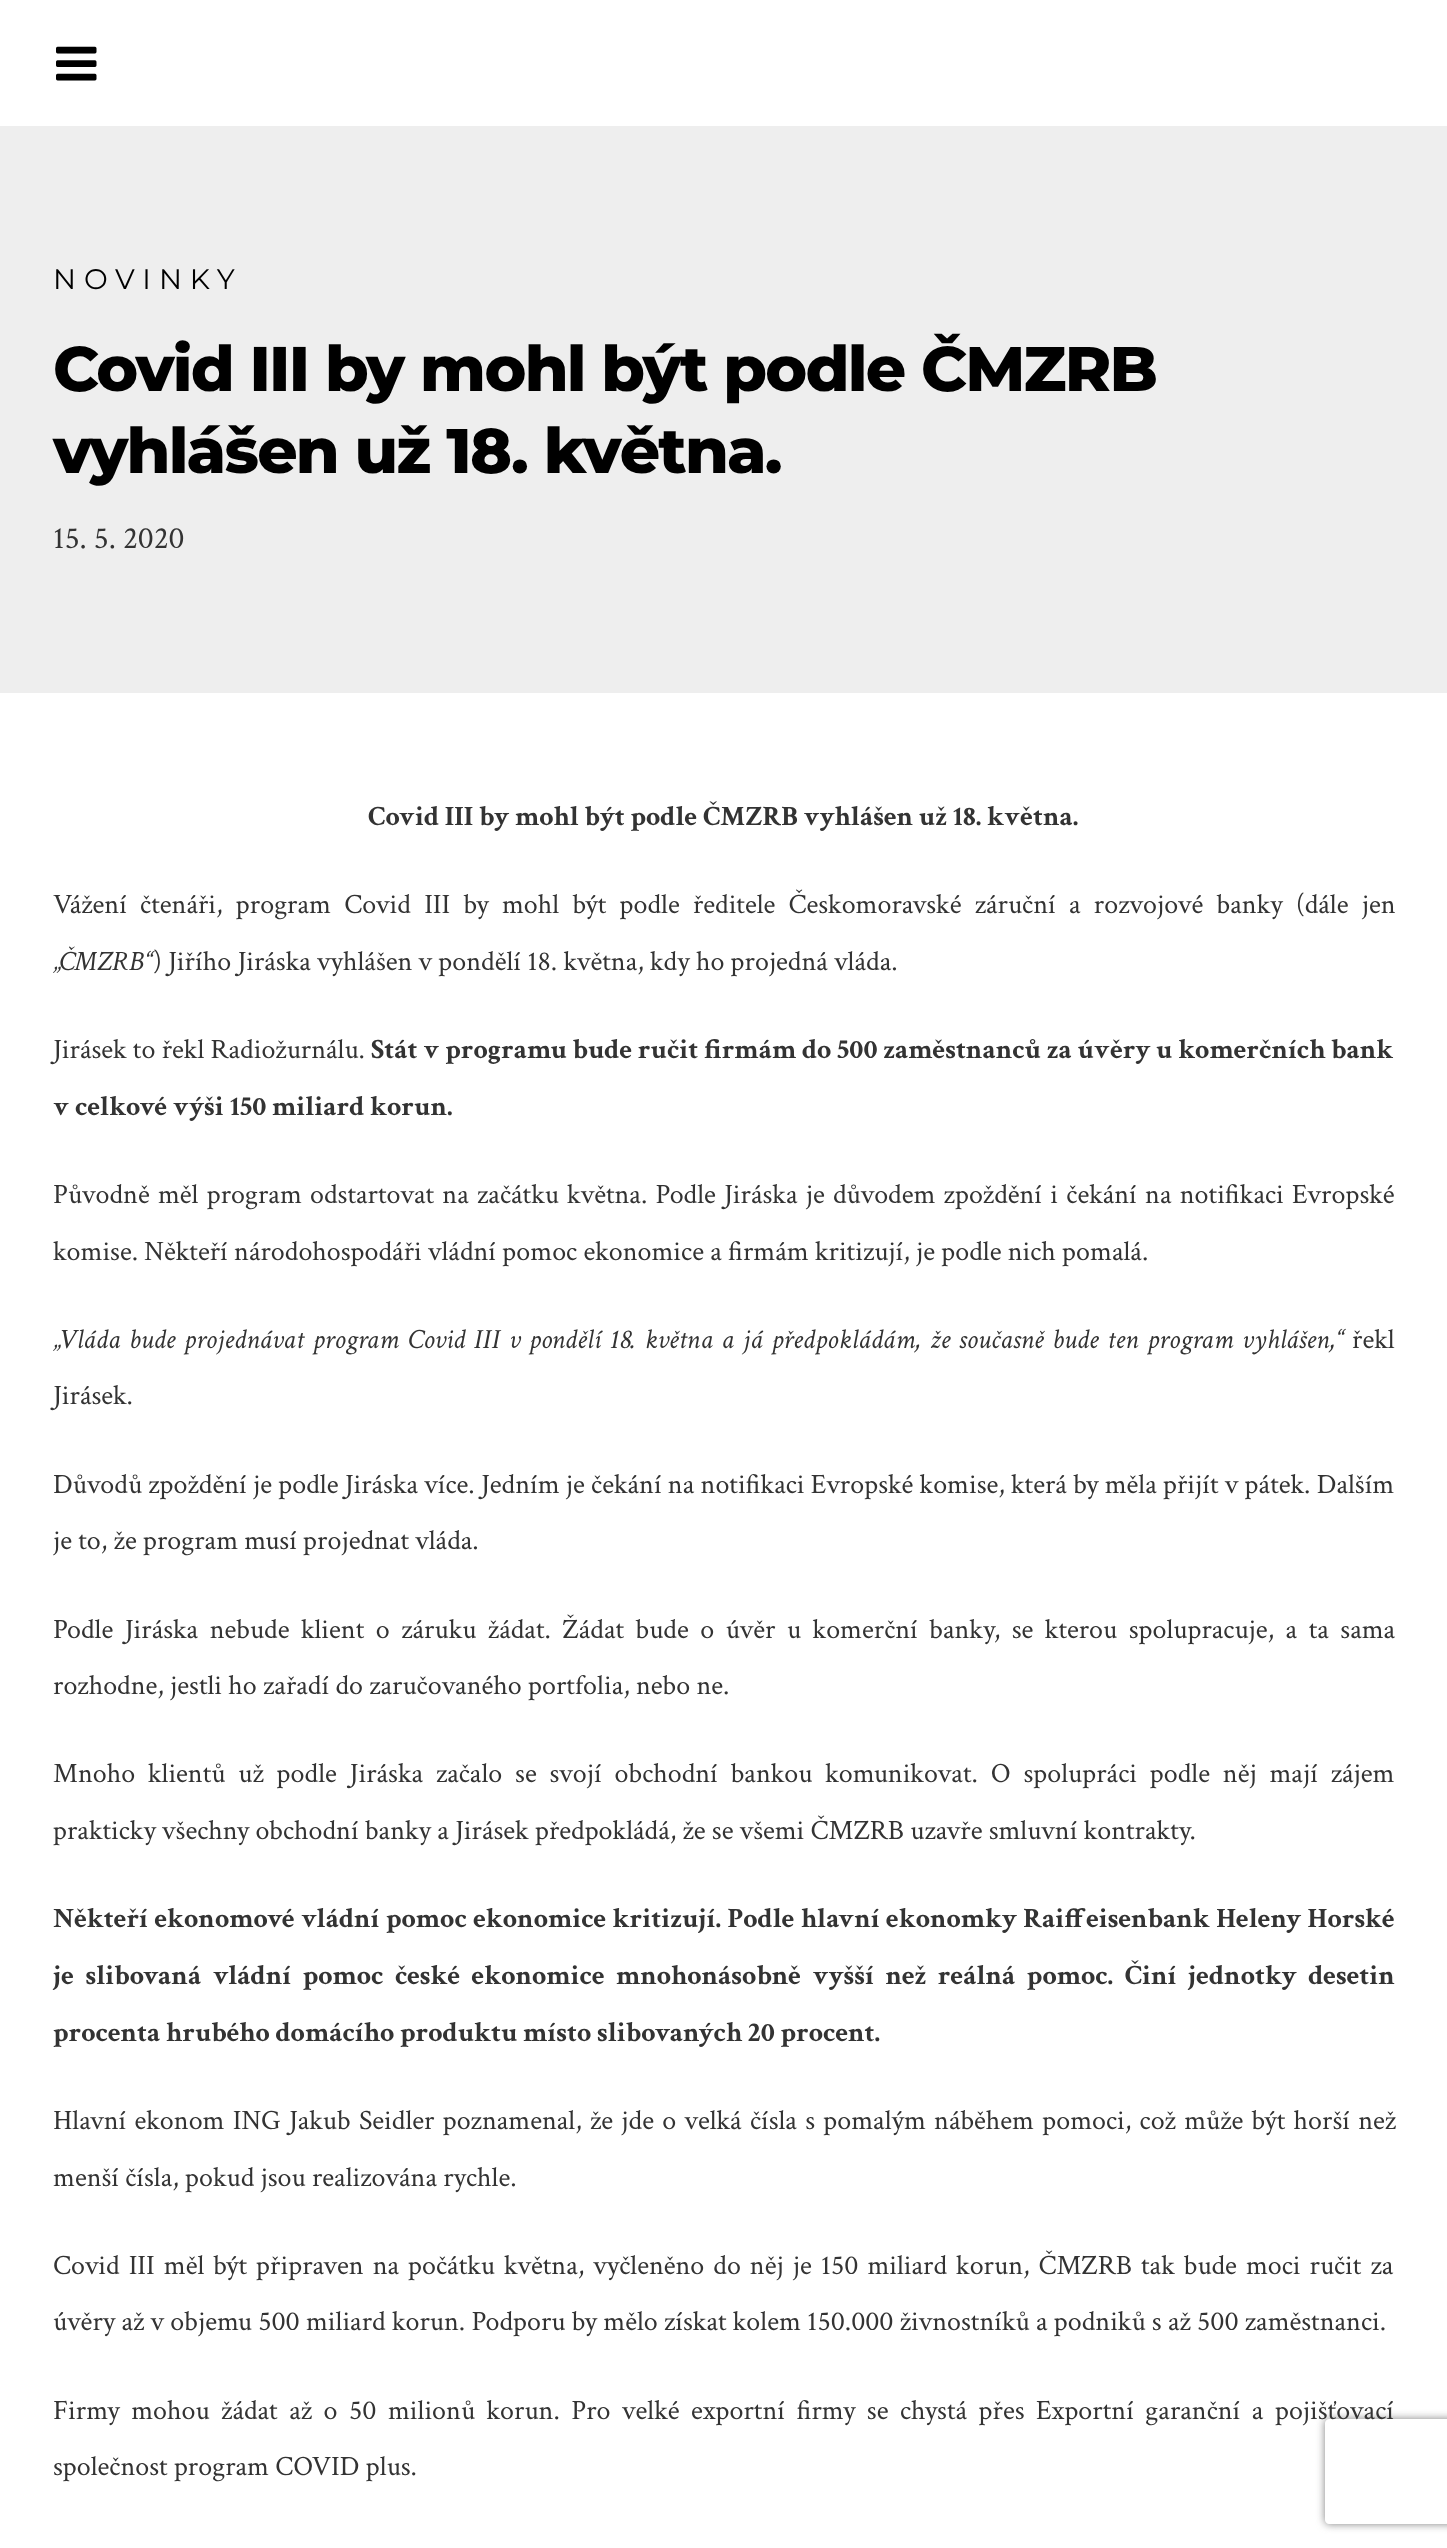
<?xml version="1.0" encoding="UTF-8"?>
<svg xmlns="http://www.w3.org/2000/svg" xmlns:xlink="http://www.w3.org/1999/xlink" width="1447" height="2548">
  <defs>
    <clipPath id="clip1"><path d="M 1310 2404 h 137 v 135 h -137 z m 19 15 h 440 c 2 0 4 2 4 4 v 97 c 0 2 -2 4 -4 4 h -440 c -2 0 -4 -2 -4 -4 v -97 c 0 -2 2 -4 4 -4 z" clip-rule="evenodd" /></clipPath>
  </defs>
  <rect width="100%" height="100%" fill="#ffffff" />
  <image x="56" y="46" width="41" height="35" xlink:href="image1.png" />
  <rect y="126" width="1447" height="567" fill="#eeeeee" />
  <g clip-path="url(#clip1)">
    <rect x="1325" y="2419" width="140" height="105" rx="4" fill="#808080" filter="blur(4.5px)" />
  </g>
  <text x="53" y="289" style="font-family: Montserrat; font-size: 28.25px; letter-spacing: 8px; fill: #000000">NOVINKY</text>
  <text x="53" y="391" style="font-family: Montserrat; font-size: 63px; font-weight: 800; letter-spacing: -1.75px; fill: #000000">Covid III by mohl být podle ČMZRB</text>
  <text x="53" y="473" style="font-family: Montserrat; font-size: 63px; font-weight: 800; letter-spacing: -1.75px; fill: #000000">vyhlášen už 18. května.</text>
  <text x="53" y="548" style="font-family: Crimson Text; font-size: 31.5px; fill: #333333">15. 5. 2020</text>
  <text x="368" y="825" style="font-family: Crimson Text; font-size: 28px; font-weight: bold; fill: #333333">Covid III by mohl být podle ČMZRB vyhlášen už 18. května.</text>
  <text x="53" y="913" word-spacing="7" style="font-family: Crimson Text; font-size: 28px; fill: #333333">Vážení čtenáři, program Covid III by mohl být podle ředitele Českomoravské záruční a rozvojové banky (dále jen</text>
  <text x="53" y="970" style="font-family: Crimson Text; font-size: 28px; font-style: italic; fill: #333333">„ČMZRB“</text>
  <text x="153" y="970" style="font-family: Crimson Text; font-size: 28px; fill: #333333">) Jiřího Jiráska vyhlášen v pondělí 18. května, kdy ho projedná vláda.</text>
  <text x="53" y="1058" style="font-family: Crimson Text; font-size: 28px; fill: #333333">Jirásek to řekl Radiožurnálu.</text>
  <text x="371" y="1058" style="font-family: Crimson Text; font-size: 28px; font-weight: bold; fill: #333333">Stát v programu bude ručit firmám do 500 zaměstnanců za úvěry u komerčních bank</text>
  <text x="53" y="1115" style="font-family: Crimson Text; font-size: 28px; font-weight: bold; fill: #333333">v celkové výši 150 miliard korun.</text>
  <text x="53" y="1203" word-spacing="2" style="font-family: Crimson Text; font-size: 28px; fill: #333333">Původně měl program odstartovat na začátku května. Podle Jiráska je důvodem zpoždění i čekání na notifikaci Evropské</text>
  <text x="53" y="1260" style="font-family: Crimson Text; font-size: 28px; fill: #333333">komise. Někteří národohospodáři vládní pomoc ekonomice a firmám kritizují, je podle nich pomalá.</text>
  <text x="53" y="1348" word-spacing="2.4" style="font-family: Crimson Text; font-size: 28px; font-style: italic; fill: #333333">„Vláda bude projednávat program Covid III v pondělí 18. května a já předpokládám, že současně bude ten program vyhlášen,“</text>
  <text x="1352" y="1348" style="font-family: Crimson Text; font-size: 28px; fill: #333333">řekl</text>
  <text x="53" y="1404" style="font-family: Crimson Text; font-size: 28px; fill: #333333">Jirásek.</text>
  <text x="53" y="1493" style="font-family: Crimson Text; font-size: 28px; fill: #333333">Důvodů zpoždění je podle Jiráska více. Jedním je čekání na notifikaci Evropské komise, která by měla přijít v pátek. Dalším</text>
  <text x="53" y="1549" style="font-family: Crimson Text; font-size: 28px; fill: #333333">je to, že program musí projednat vláda.</text>
  <text x="53" y="1638" word-spacing="5.25" style="font-family: Crimson Text; font-size: 28px; fill: #333333">Podle Jiráska nebude klient o záruku žádat. Žádat bude o úvěr u komerční banky, se kterou spolupracuje, a ta sama</text>
  <text x="53" y="1694" style="font-family: Crimson Text; font-size: 28px; fill: #333333">rozhodne, jestli ho zařadí do zaručovaného portfolia, nebo ne.</text>
  <text x="53" y="1782" word-spacing="6.6" style="font-family: Crimson Text; font-size: 28px; fill: #333333">Mnoho klientů už podle Jiráska začalo se svojí obchodní bankou komunikovat. O spolupráci podle něj mají zájem</text>
  <text x="53" y="1839" style="font-family: Crimson Text; font-size: 28px; fill: #333333">prakticky všechny obchodní banky a Jirásek předpokládá, že se všemi ČMZRB uzavře smluvní kontrakty.</text>
  <text x="53" y="1927" word-spacing="0.75" style="font-family: Crimson Text; font-size: 28px; font-weight: bold; fill: #333333">Někteří ekonomové vládní pomoc ekonomice kritizují. Podle hlavní ekonomky Raiffeisenbank Heleny Horské</text>
  <text x="53" y="1984" word-spacing="5.75" style="font-family: Crimson Text; font-size: 28px; font-weight: bold; fill: #333333">je slibovaná vládní pomoc české ekonomice mnohonásobně vyšší než reálná pomoc. Činí jednotky desetin</text>
  <text x="53" y="2041" style="font-family: Crimson Text; font-size: 28px; font-weight: bold; fill: #333333">procenta hrubého domácího produktu místo slibovaných 20 procent.</text>
  <text x="53" y="2129" word-spacing="2" style="font-family: Crimson Text; font-size: 28px; fill: #333333">Hlavní ekonom ING Jakub Seidler poznamenal, že jde o velká čísla s pomalým náběhem pomoci, což může být horší než</text>
  <text x="53" y="2186" style="font-family: Crimson Text; font-size: 28px; fill: #333333">menší čísla, pokud jsou realizována rychle.</text>
  <text x="53" y="2274" word-spacing="2.75" style="font-family: Crimson Text; font-size: 28px; fill: #333333">Covid III měl být připraven na počátku května, vyčleněno do něj je 150 miliard korun, ČMZRB tak bude moci ručit za</text>
  <text x="53" y="2330" style="font-family: Crimson Text; font-size: 28px; fill: #333333">úvěry až v objemu 500 miliard korun. Podporu by mělo získat kolem 150.000 živnostníků a podniků s až 500 zaměstnanci.</text>
  <text x="53" y="2419" word-spacing="5.25" style="font-family: Crimson Text; font-size: 28px; fill: #333333">Firmy mohou žádat až o 50 milionů korun. Pro velké exportní firmy se chystá přes Exportní garanční a pojišťovací</text>
  <text x="53" y="2475" style="font-family: Crimson Text; font-size: 28px; fill: #333333">společnost program COVID plus.</text>
</svg>
